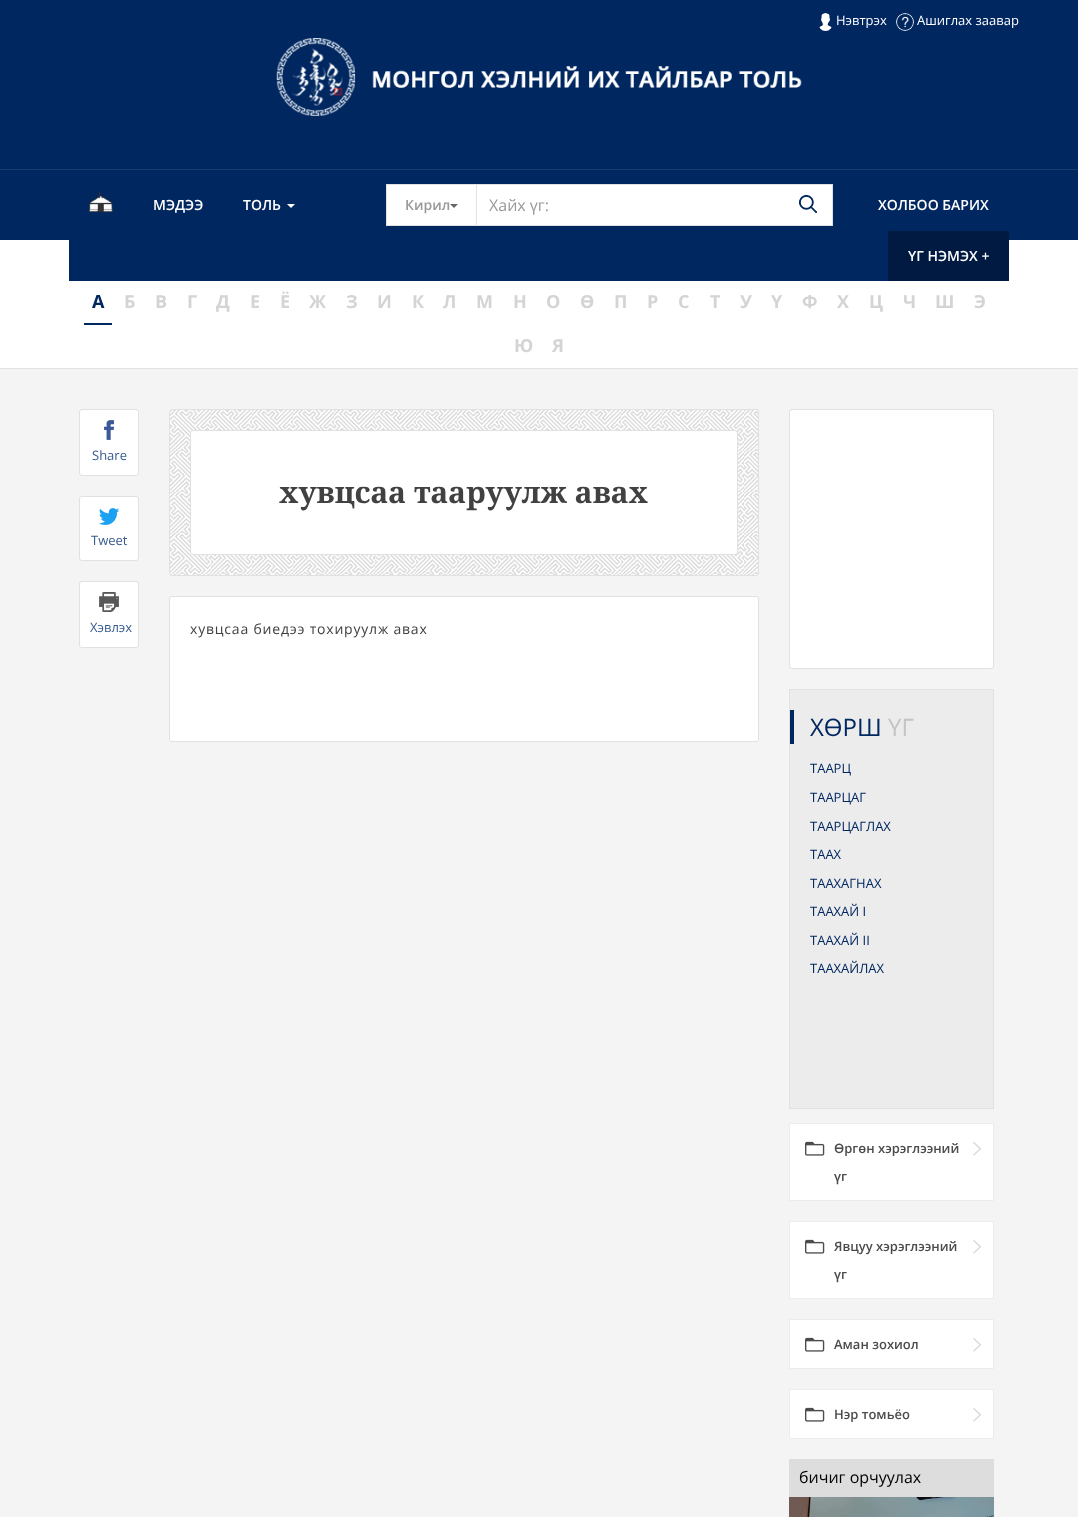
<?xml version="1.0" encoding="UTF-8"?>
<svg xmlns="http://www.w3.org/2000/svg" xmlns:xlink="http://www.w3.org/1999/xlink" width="1078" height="1517">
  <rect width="100%" height="100%" fill="#ffffff" />
  <rect width="1078" height="169" fill="#002760" />
  <image x="819" y="13" width="13" height="18" xlink:href="image1.png" />
  <image x="896" y="13" width="18" height="18" xlink:href="image2.png" />
  <rect y="169" width="1078" height="1" fill="#1a3d70" />
  <image x="276" y="38" width="526" height="78" xlink:href="image3.png" />
  <rect y="170" width="1078" height="70" fill="#002760" />
  <rect x="69" y="240" width="940" height="41" fill="#002760" />
  <image x="89" y="192" width="24" height="21" xlink:href="image4.png" />
  <path d="M 287 204 h 8 l -4 4 z" fill="#ffffff" />
  <rect x="386.5" y="184.5" width="90" height="41" fill="#ffffff" stroke="#e1e1e1" />
  <path d="M 450 204 h 8 l -4 4 z" fill="#666666" />
  <rect x="476.5" y="184.5" width="356" height="41" fill="#ffffff" stroke="#e1e1e1" />
  <image x="799" y="195" width="18" height="18" xlink:href="image5.png" />
  <rect x="888" y="231" width="121" height="50" fill="#001a41" />
  <rect x="84" y="323" width="28" height="2" fill="#002760" />
  <rect y="369" width="1078" height="1148" fill="#f4f4f4" />
  <rect y="368" width="1078" height="1" fill="#e1e1e1" />
  <rect x="79.5" y="409.5" width="59" height="66" rx="2.5" fill="#ffffff" stroke="#e1e1e1" />
  <image x="104" y="420" width="10" height="20" xlink:href="image6.png" />
  <rect x="79.5" y="496.5" width="59" height="64" rx="2.5" fill="#ffffff" stroke="#e1e1e1" />
  <image x="99" y="508" width="20" height="17" xlink:href="image7.png" />
  <rect x="79.5" y="581.5" width="59" height="66" rx="2.5" fill="#ffffff" stroke="#e1e1e1" />
  <image x="99" y="592" width="20" height="20" xlink:href="image8.png" />
  <image x="169" y="409" width="590" height="167" xlink:href="image9.png" />
  <rect x="169.5" y="409.5" width="589" height="166" rx="2.5" fill="none" stroke="#e1e1e1" />
  <rect x="190.5" y="430.5" width="547" height="124" rx="2.5" fill="#ffffff" stroke="#e1e1e1" />
  <rect x="169.5" y="596.5" width="589" height="145" rx="2.5" fill="#ffffff" stroke="#e1e1e1" />
  <rect x="789.5" y="409.5" width="204" height="259" rx="2.5" fill="#ffffff" stroke="#e1e1e1" />
  <rect x="789.5" y="689.5" width="204" height="419" fill="#ececec" stroke="#e1e1e1" />
  <rect x="790" y="710" width="4" height="34" fill="#002760" />
  <rect x="789.5" y="1123.5" width="204" height="77" fill="#ffffff" stroke="#ececec" />
  <image x="805" y="1141" width="20" height="15" xlink:href="image10.png" />
  <image x="973" y="1142" width="8" height="14" xlink:href="image11.png" />
  <rect x="789.5" y="1221.5" width="204" height="77" fill="#ffffff" stroke="#ececec" />
  <image x="805" y="1239" width="20" height="15" xlink:href="image10.png" />
  <image x="973" y="1240" width="8" height="14" xlink:href="image11.png" />
  <rect x="789.5" y="1319.5" width="204" height="49" fill="#ffffff" stroke="#ececec" />
  <image x="805" y="1337" width="20" height="15" xlink:href="image10.png" />
  <image x="973" y="1338" width="8" height="14" xlink:href="image11.png" />
  <rect x="789.5" y="1389.5" width="204" height="49" fill="#ffffff" stroke="#ececec" />
  <image x="805" y="1407" width="20" height="15" xlink:href="image10.png" />
  <image x="973" y="1408" width="8" height="14" xlink:href="image11.png" />
  <rect x="789" y="1459" width="205" height="38" fill="#dddddd" />
  <image x="789" y="1497" width="205" height="20" xlink:href="image12.png" />
  <text x="836" y="25" style="font-family: Open Sans; font-size: 13px; fill: #ffffff">Нэвтрэх</text>
  <text x="917" y="25" style="font-family: Open Sans; font-size: 13px; fill: #ffffff">Ашиглах заавар</text>
  <text x="153" y="210" style="font-family: Open Sans; font-size: 14px; font-weight: 600; fill: #ffffff">МЭДЭЭ</text>
  <text x="243" y="210" style="font-family: Open Sans; font-size: 14px; font-weight: 600; fill: #ffffff">ТОЛЬ</text>
  <text x="405" y="210" style="font-family: Open Sans; font-size: 14px; font-weight: 600; fill: #999999">Кирил</text>
  <text x="489" y="211" style="font-family: Open Sans; font-size: 16px; fill: #999999">Хайх үг:</text>
  <text x="878" y="210" style="font-family: Open Sans; font-size: 14px; font-weight: 600; fill: #ffffff">ХОЛБОО БАРИХ</text>
  <text x="908" y="261" style="font-family: Open Sans; font-size: 14px; font-weight: 600; fill: #ffffff">ҮГ НЭМЭХ +</text>
  <text x="92" y="308" style="font-family: Open Sans; font-size: 18px; font-weight: bold; fill: #002760">А</text>
  <text x="124" y="308" style="font-family: Open Sans; font-size: 18px; font-weight: bold; fill: #d4d4d4">Б</text>
  <text x="155" y="308" style="font-family: Open Sans; font-size: 18px; font-weight: bold; fill: #d4d4d4">В</text>
  <text x="187" y="308" style="font-family: Open Sans; font-size: 18px; font-weight: bold; fill: #d4d4d4">Г</text>
  <text x="216" y="308" style="font-family: Open Sans; font-size: 18px; font-weight: bold; fill: #d4d4d4">Д</text>
  <text x="250" y="308" style="font-family: Open Sans; font-size: 18px; font-weight: bold; fill: #d4d4d4">Е</text>
  <text x="280" y="308" style="font-family: Open Sans; font-size: 18px; font-weight: bold; fill: #d4d4d4">Ё</text>
  <text x="309" y="308" style="font-family: Open Sans; font-size: 18px; font-weight: bold; fill: #d4d4d4">Ж</text>
  <text x="346" y="308" style="font-family: Open Sans; font-size: 18px; font-weight: bold; fill: #d4d4d4">З</text>
  <text x="377" y="308" style="font-family: Open Sans; font-size: 18px; font-weight: bold; fill: #d4d4d4">И</text>
  <text x="412" y="308" style="font-family: Open Sans; font-size: 18px; font-weight: bold; fill: #d4d4d4">К</text>
  <text x="443" y="308" style="font-family: Open Sans; font-size: 18px; font-weight: bold; fill: #d4d4d4">Л</text>
  <text x="476" y="308" style="font-family: Open Sans; font-size: 18px; font-weight: bold; fill: #d4d4d4">М</text>
  <text x="513" y="308" style="font-family: Open Sans; font-size: 18px; font-weight: bold; fill: #d4d4d4">Н</text>
  <text x="546" y="308" style="font-family: Open Sans; font-size: 18px; font-weight: bold; fill: #d4d4d4">О</text>
  <text x="580" y="308" style="font-family: Open Sans; font-size: 18px; font-weight: bold; fill: #d4d4d4">Ө</text>
  <text x="614" y="308" style="font-family: Open Sans; font-size: 18px; font-weight: bold; fill: #d4d4d4">П</text>
  <text x="647" y="308" style="font-family: Open Sans; font-size: 18px; font-weight: bold; fill: #d4d4d4">Р</text>
  <text x="678" y="308" style="font-family: Open Sans; font-size: 18px; font-weight: bold; fill: #d4d4d4">С</text>
  <text x="710" y="308" style="font-family: Open Sans; font-size: 18px; font-weight: bold; fill: #d4d4d4">Т</text>
  <text x="740" y="308" style="font-family: Open Sans; font-size: 18px; font-weight: bold; fill: #d4d4d4">У</text>
  <text x="771" y="308" style="font-family: Open Sans; font-size: 18px; font-weight: bold; fill: #d4d4d4">Ү</text>
  <text x="802" y="308" style="font-family: Open Sans; font-size: 18px; font-weight: bold; fill: #d4d4d4">Ф</text>
  <text x="837" y="308" style="font-family: Open Sans; font-size: 18px; font-weight: bold; fill: #d4d4d4">Х</text>
  <text x="869" y="308" style="font-family: Open Sans; font-size: 18px; font-weight: bold; fill: #d4d4d4">Ц</text>
  <text x="903" y="308" style="font-family: Open Sans; font-size: 18px; font-weight: bold; fill: #d4d4d4">Ч</text>
  <text x="935" y="308" style="font-family: Open Sans; font-size: 18px; font-weight: bold; fill: #d4d4d4">Ш</text>
  <text x="974" y="308" style="font-family: Open Sans; font-size: 18px; font-weight: bold; fill: #d4d4d4">Э</text>
  <text x="514" y="352" style="font-family: Open Sans; font-size: 18px; font-weight: bold; fill: #d4d4d4">Ю</text>
  <text x="552" y="352" style="font-family: Open Sans; font-size: 18px; font-weight: bold; fill: #d4d4d4">Я</text>
  <text x="92" y="460" style="font-family: Open Sans; font-size: 13px; fill: #385c8e">Share</text>
  <text x="91" y="545" style="font-family: Open Sans; font-size: 13px; fill: #385c8e">Tweet</text>
  <text x="90" y="632" style="font-family: Open Sans; font-size: 13px; fill: #385c8e">Хэвлэх</text>
  <text x="279" y="503" style="font-family: Noto Serif; font-size: 30px; font-weight: bold; fill: #414141">хувцсаа тааруулж авах</text>
  <text x="190" y="634" style="font-family: Open Sans; font-size: 14px; letter-spacing: 0.8px; fill: #414141">хувцсаа биедээ тохируулж авах</text>
  <text x="810" y="736" style="font-family: Open Sans; font-size: 24px; fill: #002760">ХӨРШ</text>
  <text x="888" y="736" style="font-family: Open Sans; font-size: 24px; fill: #c4c4c4">ҮГ</text>
  <text x="810" y="773" style="font-family: Open Sans; font-size: 13px; fill: #002760">ТААРЦ</text>
  <text x="810" y="802" style="font-family: Open Sans; font-size: 13px; fill: #002760">ТААРЦАГ</text>
  <text x="810" y="831" style="font-family: Open Sans; font-size: 13px; fill: #002760">ТААРЦАГЛАХ</text>
  <text x="810" y="859" style="font-family: Open Sans; font-size: 13px; fill: #002760">ТААХ</text>
  <text x="810" y="888" style="font-family: Open Sans; font-size: 13px; fill: #002760">ТААХАГНАХ</text>
  <text x="810" y="916" style="font-family: Open Sans; font-size: 13px; fill: #002760">ТААХАЙ I</text>
  <text x="810" y="945" style="font-family: Open Sans; font-size: 13px; fill: #002760">ТААХАЙ II</text>
  <text x="810" y="973" style="font-family: Open Sans; font-size: 13px; fill: #002760">ТААХАЙЛАХ</text>
  <text x="834" y="1153" style="font-family: Open Sans; font-size: 13px; font-weight: 600; fill: #4c4c4c">Өргөн хэрэглээний</text>
  <text x="834" y="1181" style="font-family: Open Sans; font-size: 13px; font-weight: 600; fill: #4c4c4c">үг</text>
  <text x="834" y="1251" style="font-family: Open Sans; font-size: 13px; font-weight: 600; fill: #4c4c4c">Явцуу хэрэглээний</text>
  <text x="834" y="1279" style="font-family: Open Sans; font-size: 13px; font-weight: 600; fill: #4c4c4c">үг</text>
  <text x="834" y="1349" style="font-family: Open Sans; font-size: 13px; font-weight: 600; fill: #4c4c4c">Аман зохиол</text>
  <text x="834" y="1419" style="font-family: Open Sans; font-size: 13px; font-weight: 600; fill: #4c4c4c">Нэр томьёо</text>
  <text x="799" y="1483" style="font-family: Open Sans; font-size: 16px; fill: #000000">бичиг орчуулах</text>
</svg>
